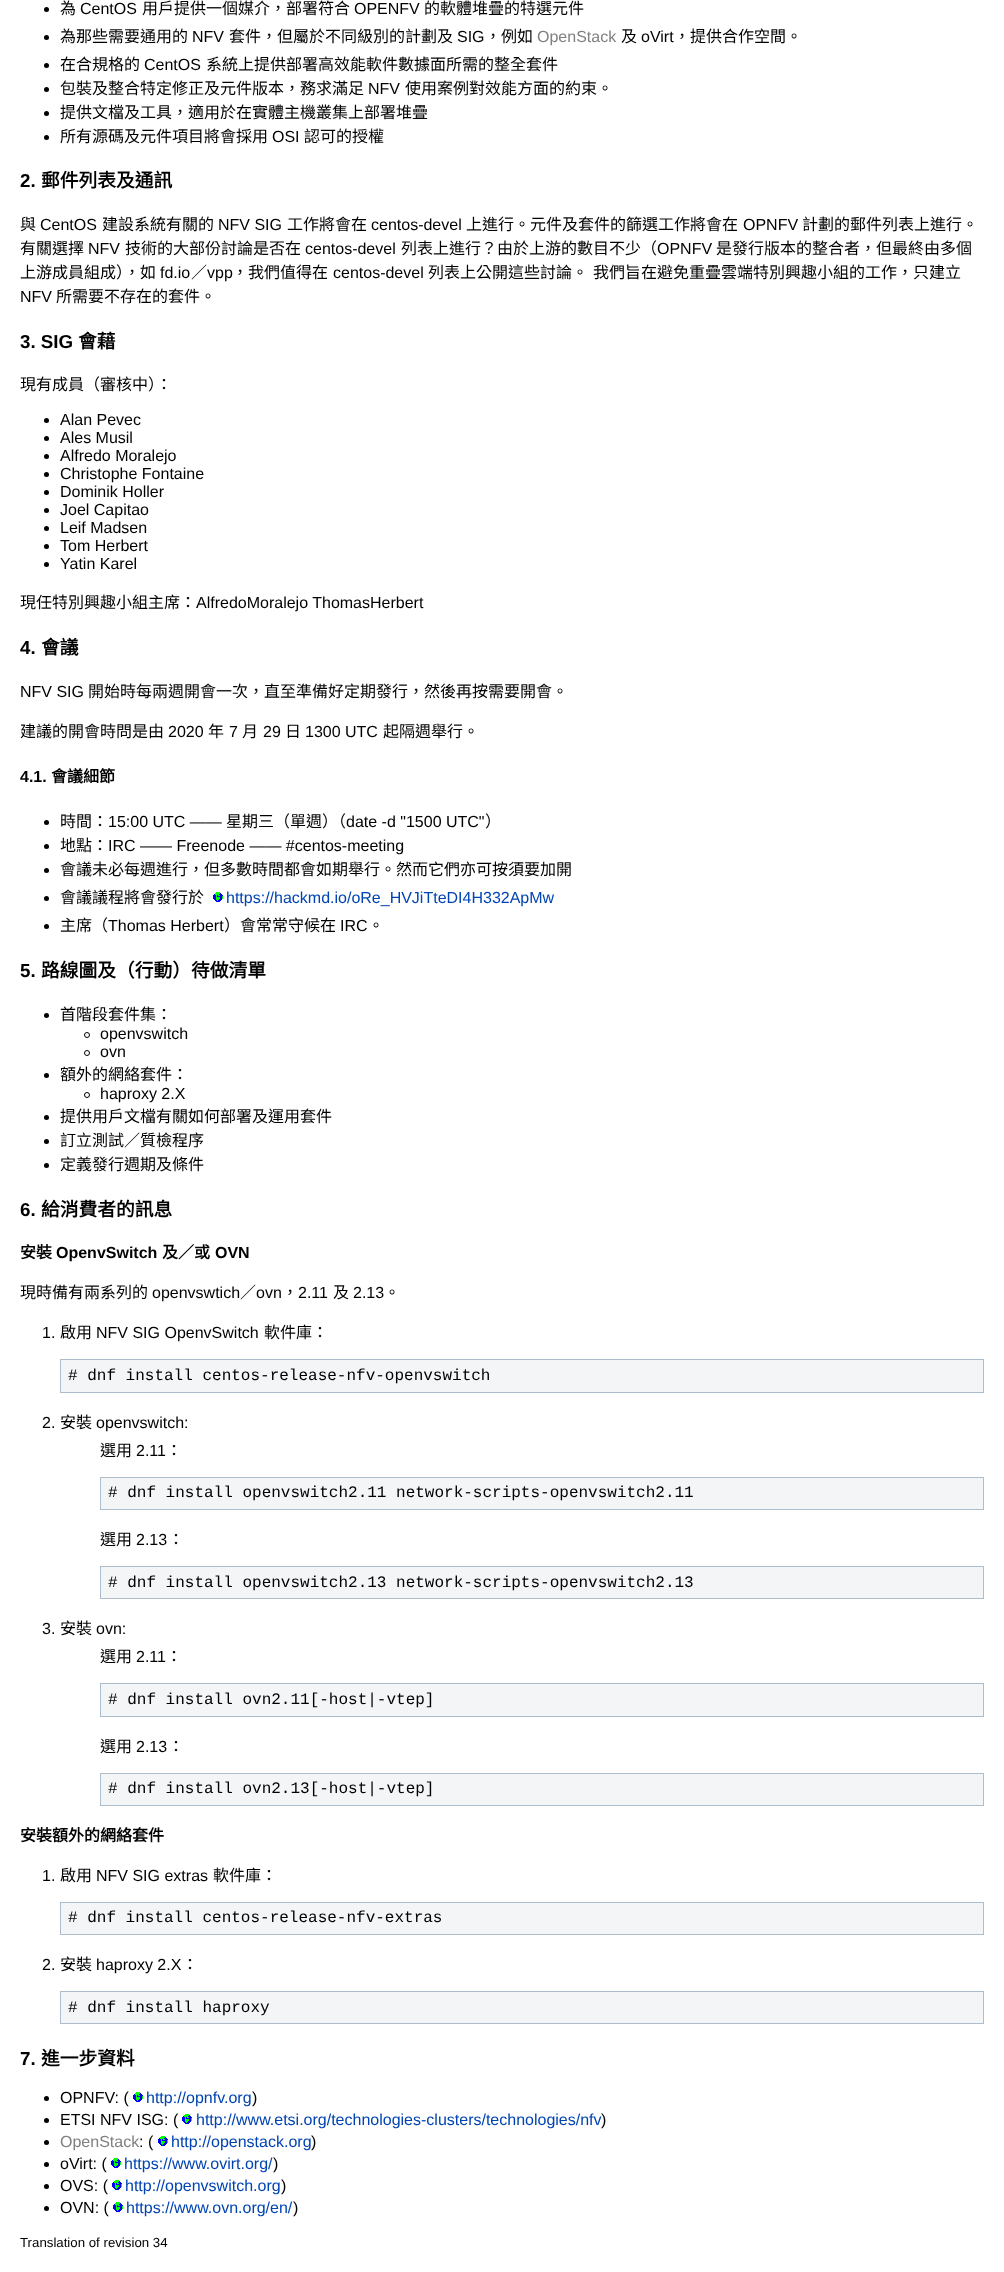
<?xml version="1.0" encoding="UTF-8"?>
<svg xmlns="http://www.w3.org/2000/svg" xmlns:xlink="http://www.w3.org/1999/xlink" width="1004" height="2272">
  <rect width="100%" height="100%" fill="#ffffff" />
  <circle cx="46.5" cy="9.5" r="2.5" fill="#000000" />
  <circle cx="46.5" cy="37.5" r="2.5" fill="#000000" />
  <circle cx="46.5" cy="65.5" r="2.5" fill="#000000" />
  <circle cx="46.5" cy="89.5" r="2.5" fill="#000000" />
  <circle cx="46.5" cy="113.5" r="2.5" fill="#000000" />
  <circle cx="46.5" cy="137.5" r="2.5" fill="#000000" />
  <circle cx="46.5" cy="420.5" r="2.5" fill="#000000" />
  <circle cx="46.5" cy="438.5" r="2.5" fill="#000000" />
  <circle cx="46.5" cy="456.5" r="2.5" fill="#000000" />
  <circle cx="46.5" cy="474.5" r="2.5" fill="#000000" />
  <circle cx="46.5" cy="492.5" r="2.5" fill="#000000" />
  <circle cx="46.5" cy="510.5" r="2.5" fill="#000000" />
  <circle cx="46.5" cy="528.5" r="2.5" fill="#000000" />
  <circle cx="46.5" cy="546.5" r="2.5" fill="#000000" />
  <circle cx="46.5" cy="564.5" r="2.5" fill="#000000" />
  <circle cx="46.5" cy="822.5" r="2.5" fill="#000000" />
  <circle cx="46.5" cy="846.5" r="2.5" fill="#000000" />
  <circle cx="46.5" cy="870.5" r="2.5" fill="#000000" />
  <circle cx="46.5" cy="898.5" r="2.5" fill="#000000" />
  <image x="213" y="892" width="10" height="10" xlink:href="image1.png" />
  <circle cx="46.5" cy="926.5" r="2.5" fill="#000000" />
  <circle cx="46.5" cy="1015.5" r="2.5" fill="#000000" />
  <circle cx="87" cy="1035" r="2.5" fill="none" stroke="#000000" />
  <circle cx="87" cy="1053" r="2.5" fill="none" stroke="#000000" />
  <circle cx="46.5" cy="1075.5" r="2.5" fill="#000000" />
  <circle cx="87" cy="1095" r="2.5" fill="none" stroke="#000000" />
  <circle cx="46.5" cy="1117.5" r="2.5" fill="#000000" />
  <circle cx="46.5" cy="1141.5" r="2.5" fill="#000000" />
  <circle cx="46.5" cy="1165.5" r="2.5" fill="#000000" />
  <rect x="60.5" y="1359.5" width="923" height="33" fill="#f3f5f7" stroke="#aebdcc" />
  <rect x="100.5" y="1477.5" width="883" height="32" fill="#f3f5f7" stroke="#aebdcc" />
  <rect x="100.5" y="1566.5" width="883" height="32" fill="#f3f5f7" stroke="#aebdcc" />
  <rect x="100.5" y="1683.5" width="883" height="33" fill="#f3f5f7" stroke="#aebdcc" />
  <rect x="100.5" y="1773.5" width="883" height="32" fill="#f3f5f7" stroke="#aebdcc" />
  <rect x="60.5" y="1902.5" width="923" height="32" fill="#f3f5f7" stroke="#aebdcc" />
  <rect x="60.5" y="1991.5" width="923" height="32" fill="#f3f5f7" stroke="#aebdcc" />
  <circle cx="46.5" cy="2098.5" r="2.5" fill="#000000" />
  <image x="133" y="2092" width="10" height="10" xlink:href="image1.png" />
  <circle cx="46.5" cy="2120.5" r="2.5" fill="#000000" />
  <image x="182" y="2114" width="10" height="10" xlink:href="image1.png" />
  <circle cx="46.5" cy="2142.5" r="2.5" fill="#000000" />
  <image x="158" y="2136" width="10" height="10" xlink:href="image1.png" />
  <circle cx="46.5" cy="2164.5" r="2.5" fill="#000000" />
  <image x="111" y="2158" width="10" height="10" xlink:href="image1.png" />
  <circle cx="46.5" cy="2186.5" r="2.5" fill="#000000" />
  <image x="112" y="2180" width="10" height="10" xlink:href="image1.png" />
  <circle cx="46.5" cy="2208.5" r="2.5" fill="#000000" />
  <image x="113" y="2202" width="10" height="10" xlink:href="image1.png" />
  <text x="60" y="14" style="font-family: Noto Sans CJK TC; font-size: 16px; fill: #000000">為</text>
  <text x="80" y="14" style="font-family: Liberation Sans; font-size: 16px; fill: #000000">CentOS</text>
  <text x="142" y="14" style="font-family: Noto Sans CJK TC; font-size: 16px; fill: #000000">用戶提供一個媒介，部署符合</text>
  <text x="354" y="14" style="font-family: Liberation Sans; font-size: 16px; fill: #000000">OPENFV</text>
  <text x="424" y="14" style="font-family: Noto Sans CJK TC; font-size: 16px; fill: #000000">的軟體堆疊的特選元件</text>
  <text x="60" y="42" style="font-family: Noto Sans CJK TC; font-size: 16px; fill: #000000">為那些需要通用的</text>
  <text x="192" y="42" style="font-family: Liberation Sans; font-size: 16px; fill: #000000">NFV</text>
  <text x="229" y="42" style="font-family: Noto Sans CJK TC; font-size: 16px; fill: #000000">套件，但屬於不同級別的計劃及</text>
  <text x="457" y="42" style="font-family: Liberation Sans; font-size: 16px; fill: #000000">SIG</text>
  <text x="485" y="42" style="font-family: Noto Sans CJK TC; font-size: 16px; fill: #000000">，例如</text>
  <text x="537" y="42" style="font-family: Liberation Sans; font-size: 16px; fill: #808080">OpenStack</text>
  <text x="621" y="42" style="font-family: Noto Sans CJK TC; font-size: 16px; fill: #000000">及</text>
  <text x="641" y="42" style="font-family: Liberation Sans; font-size: 16px; fill: #000000">oVirt</text>
  <text x="674" y="42" style="font-family: Noto Sans CJK TC; font-size: 16px; fill: #000000">，提供合作空間。</text>
  <text x="60" y="70" style="font-family: Noto Sans CJK TC; font-size: 16px; fill: #000000">在合規格的</text>
  <text x="144" y="70" style="font-family: Liberation Sans; font-size: 16px; fill: #000000">CentOS</text>
  <text x="206" y="70" style="font-family: Noto Sans CJK TC; font-size: 16px; fill: #000000">系統上提供部署高效能軟件數據面所需的整全套件</text>
  <text x="60" y="94" style="font-family: Noto Sans CJK TC; font-size: 16px; fill: #000000">包裝及整合特定修正及元件版本，務求滿足</text>
  <text x="368" y="94" style="font-family: Liberation Sans; font-size: 16px; fill: #000000">NFV</text>
  <text x="405" y="94" style="font-family: Noto Sans CJK TC; font-size: 16px; fill: #000000">使用案例對效能方面的約束。</text>
  <text x="60" y="118" style="font-family: Noto Sans CJK TC; font-size: 16px; fill: #000000">提供文檔及工具，適用於在實體主機叢集上部署堆疊</text>
  <text x="60" y="142" style="font-family: Noto Sans CJK TC; font-size: 16px; fill: #000000">所有源碼及元件項目將會採用</text>
  <text x="272" y="142" style="font-family: Liberation Sans; font-size: 16px; fill: #000000">OSI</text>
  <text x="304" y="142" style="font-family: Noto Sans CJK TC; font-size: 16px; fill: #000000">認可的授權</text>
  <text x="20" y="187" style="font-family: Liberation Sans; font-size: 18.75px; font-weight: bold; fill: #000000">2.</text>
  <text x="41" y="187" style="font-family: Noto Sans CJK TC; font-size: 18.75px; font-weight: bold; fill: #000000">郵件列表及通訊</text>
  <text x="20" y="230" style="font-family: Noto Sans CJK TC; font-size: 16px; fill: #000000">與</text>
  <text x="40" y="230" style="font-family: Liberation Sans; font-size: 16px; fill: #000000">CentOS</text>
  <text x="102" y="230" style="font-family: Noto Sans CJK TC; font-size: 16px; fill: #000000">建設系統有關的</text>
  <text x="218" y="230" style="font-family: Liberation Sans; font-size: 16px; fill: #000000">NFV SIG</text>
  <text x="287" y="230" style="font-family: Noto Sans CJK TC; font-size: 16px; fill: #000000">工作將會在</text>
  <text x="371" y="230" style="font-family: Liberation Sans; font-size: 16px; fill: #000000">centos-devel</text>
  <text x="466" y="230" style="font-family: Noto Sans CJK TC; font-size: 16px; fill: #000000">上進行。元件及套件的篩選工作將會在</text>
  <text x="743" y="230" style="font-family: Liberation Sans; font-size: 16px; fill: #000000">OPNFV</text>
  <text x="802" y="230" style="font-family: Noto Sans CJK TC; font-size: 16px; fill: #000000">計劃的郵件列表上進行。</text>
  <text x="20" y="254" style="font-family: Noto Sans CJK TC; font-size: 16px; fill: #000000">有關選擇</text>
  <text x="88" y="254" style="font-family: Liberation Sans; font-size: 16px; fill: #000000">NFV</text>
  <text x="125" y="254" style="font-family: Noto Sans CJK TC; font-size: 16px; fill: #000000">技術的大部份討論是否在</text>
  <text x="305" y="254" style="font-family: Liberation Sans; font-size: 16px; fill: #000000">centos-devel</text>
  <text x="401" y="254" style="font-family: Noto Sans CJK TC; font-size: 16px; fill: #000000">列表上進行？由於上游的數目不少（</text>
  <text x="657" y="254" style="font-family: Liberation Sans; font-size: 16px; fill: #000000">OPNFV</text>
  <text x="716" y="254" style="font-family: Noto Sans CJK TC; font-size: 16px; fill: #000000">是發行版本的整合者，但最終由多個</text>
  <text x="20" y="278" style="font-family: Noto Sans CJK TC; font-size: 16px; fill: #000000">上游成員組成），如</text>
  <text x="160" y="278" style="font-family: Liberation Sans; font-size: 16px; fill: #000000">fd.io</text>
  <text x="191" y="278" style="font-family: Noto Sans CJK TC; font-size: 16px; fill: #000000">／</text>
  <text x="207" y="278" style="font-family: Liberation Sans; font-size: 16px; fill: #000000">vpp</text>
  <text x="232" y="278" style="font-family: Noto Sans CJK TC; font-size: 16px; fill: #000000">，我們值得在</text>
  <text x="333" y="278" style="font-family: Liberation Sans; font-size: 16px; fill: #000000">centos-devel</text>
  <text x="428" y="278" style="font-family: Noto Sans CJK TC; font-size: 16px; fill: #000000">列表上公開這些討論。</text>
  <text x="593" y="278" style="font-family: Noto Sans CJK TC; font-size: 16px; fill: #000000">我們旨在避免重疊雲端特別興趣小組的工作，只建立</text>
  <text x="20" y="302" style="font-family: Liberation Sans; font-size: 16px; fill: #000000">NFV</text>
  <text x="56" y="302" style="font-family: Noto Sans CJK TC; font-size: 16px; fill: #000000">所需要不存在的套件。</text>
  <text x="20" y="348" style="font-family: Liberation Sans; font-size: 18.75px; font-weight: bold; fill: #000000">3. SIG</text>
  <text x="78" y="348" style="font-family: Noto Sans CJK TC; font-size: 18.75px; font-weight: bold; fill: #000000">會藉</text>
  <text x="20" y="390" style="font-family: Noto Sans CJK TC; font-size: 16px; fill: #000000">現有成員（審核中）：</text>
  <text x="60" y="425" style="font-family: Liberation Sans; font-size: 16px; fill: #000000">Alan Pevec</text>
  <text x="60" y="443" style="font-family: Liberation Sans; font-size: 16px; fill: #000000">Ales Musil</text>
  <text x="60" y="461" style="font-family: Liberation Sans; font-size: 16px; fill: #000000">Alfredo Moralejo</text>
  <text x="60" y="479" style="font-family: Liberation Sans; font-size: 16px; fill: #000000">Christophe Fontaine</text>
  <text x="60" y="497" style="font-family: Liberation Sans; font-size: 16px; fill: #000000">Dominik Holler</text>
  <text x="60" y="515" style="font-family: Liberation Sans; font-size: 16px; fill: #000000">Joel Capitao</text>
  <text x="60" y="533" style="font-family: Liberation Sans; font-size: 16px; fill: #000000">Leif Madsen</text>
  <text x="60" y="551" style="font-family: Liberation Sans; font-size: 16px; fill: #000000">Tom Herbert</text>
  <text x="60" y="569" style="font-family: Liberation Sans; font-size: 16px; fill: #000000">Yatin Karel</text>
  <text x="20" y="608" style="font-family: Noto Sans CJK TC; font-size: 16px; fill: #000000">現任特別興趣小組主席：</text>
  <text x="196" y="608" style="font-family: Liberation Sans; font-size: 16px; fill: #000000">AlfredoMoralejo ThomasHerbert</text>
  <text x="20" y="654" style="font-family: Liberation Sans; font-size: 18.75px; font-weight: bold; fill: #000000">4.</text>
  <text x="41" y="654" style="font-family: Noto Sans CJK TC; font-size: 18.75px; font-weight: bold; fill: #000000">會議</text>
  <text x="20" y="697" style="font-family: Liberation Sans; font-size: 16px; fill: #000000">NFV SIG</text>
  <text x="88" y="697" style="font-family: Noto Sans CJK TC; font-size: 16px; fill: #000000">開始時每兩週開會一次，直至準備好定期發行，然後再按需要開會。</text>
  <text x="20" y="737" style="font-family: Noto Sans CJK TC; font-size: 16px; fill: #000000">建議的開會時問是由</text>
  <text x="168" y="737" style="font-family: Liberation Sans; font-size: 16px; fill: #000000">2020</text>
  <text x="208" y="737" style="font-family: Noto Sans CJK TC; font-size: 16px; fill: #000000">年</text>
  <text x="229" y="737" style="font-family: Liberation Sans; font-size: 16px; fill: #000000">7</text>
  <text x="242" y="737" style="font-family: Noto Sans CJK TC; font-size: 16px; fill: #000000">月</text>
  <text x="263" y="737" style="font-family: Liberation Sans; font-size: 16px; fill: #000000">29</text>
  <text x="285" y="737" style="font-family: Noto Sans CJK TC; font-size: 16px; fill: #000000">日</text>
  <text x="305" y="737" style="font-family: Liberation Sans; font-size: 16px; fill: #000000">1300 UTC</text>
  <text x="383" y="737" style="font-family: Noto Sans CJK TC; font-size: 16px; fill: #000000">起隔週舉行。</text>
  <text x="20" y="782" style="font-family: Liberation Sans; font-size: 16px; font-weight: bold; fill: #000000">4.1.</text>
  <text x="51" y="782" style="font-family: Noto Sans CJK TC; font-size: 16px; font-weight: bold; fill: #000000">會議細節</text>
  <text x="60" y="827" style="font-family: Noto Sans CJK TC; font-size: 16px; fill: #000000">時間：</text>
  <text x="108" y="827" style="font-family: Liberation Sans; font-size: 16px; fill: #000000">15:00 UTC ——</text>
  <text x="226" y="827" style="font-family: Noto Sans CJK TC; font-size: 16px; fill: #000000">星期三（單週）（</text>
  <text x="346" y="827" style="font-family: Liberation Sans; font-size: 16px; fill: #000000">date -d "1500 UTC"</text>
  <text x="485" y="827" style="font-family: Noto Sans CJK TC; font-size: 16px; fill: #000000">）</text>
  <text x="60" y="851" style="font-family: Noto Sans CJK TC; font-size: 16px; fill: #000000">地點：</text>
  <text x="108" y="851" style="font-family: Liberation Sans; font-size: 16px; fill: #000000">IRC —— Freenode —— #centos-meeting</text>
  <text x="60" y="875" style="font-family: Noto Sans CJK TC; font-size: 16px; fill: #000000">會議未必每週進行，但多數時間都會如期舉行。然而它們亦可按須要加開</text>
  <text x="60" y="903" style="font-family: Noto Sans CJK TC; font-size: 16px; fill: #000000">會議議程將會發行於</text>
  <text x="226" y="903" style="font-family: Liberation Sans; font-size: 16px; fill: #0044b3">https://hackmd.io/oRe_HVJiTteDI4H332ApMw</text>
  <text x="60" y="931" style="font-family: Noto Sans CJK TC; font-size: 16px; fill: #000000">主席（</text>
  <text x="108" y="931" style="font-family: Liberation Sans; font-size: 16px; fill: #000000">Thomas Herbert</text>
  <text x="224" y="931" style="font-family: Noto Sans CJK TC; font-size: 16px; fill: #000000">）會常常守候在</text>
  <text x="340" y="931" style="font-family: Liberation Sans; font-size: 16px; fill: #000000">IRC</text>
  <text x="368" y="931" style="font-family: Noto Sans CJK TC; font-size: 16px; fill: #000000">。</text>
  <text x="20" y="977" style="font-family: Liberation Sans; font-size: 18.75px; font-weight: bold; fill: #000000">5.</text>
  <text x="41" y="977" style="font-family: Noto Sans CJK TC; font-size: 18.75px; font-weight: bold; fill: #000000">路線圖及（行動）待做清單</text>
  <text x="60" y="1020" style="font-family: Noto Sans CJK TC; font-size: 16px; fill: #000000">首階段套件集：</text>
  <text x="100" y="1039" style="font-family: Liberation Sans; font-size: 16px; fill: #000000">openvswitch</text>
  <text x="100" y="1057" style="font-family: Liberation Sans; font-size: 16px; fill: #000000">ovn</text>
  <text x="60" y="1080" style="font-family: Noto Sans CJK TC; font-size: 16px; fill: #000000">額外的網絡套件：</text>
  <text x="100" y="1099" style="font-family: Liberation Sans; font-size: 16px; fill: #000000">haproxy 2.X</text>
  <text x="60" y="1122" style="font-family: Noto Sans CJK TC; font-size: 16px; fill: #000000">提供用戶文檔有關如何部署及運用套件</text>
  <text x="60" y="1146" style="font-family: Noto Sans CJK TC; font-size: 16px; fill: #000000">訂立測試／質檢程序</text>
  <text x="60" y="1170" style="font-family: Noto Sans CJK TC; font-size: 16px; fill: #000000">定義發行週期及條件</text>
  <text x="20" y="1216" style="font-family: Liberation Sans; font-size: 18.75px; font-weight: bold; fill: #000000">6.</text>
  <text x="41" y="1216" style="font-family: Noto Sans CJK TC; font-size: 18.75px; font-weight: bold; fill: #000000">給消費者的訊息</text>
  <text x="20" y="1258" style="font-family: Noto Sans CJK TC; font-size: 16px; font-weight: bold; fill: #000000">安裝</text>
  <text x="56" y="1258" style="font-family: Liberation Sans; font-size: 16px; font-weight: bold; fill: #000000">OpenvSwitch</text>
  <text x="162" y="1258" style="font-family: Noto Sans CJK TC; font-size: 16px; font-weight: bold; fill: #000000">及／或</text>
  <text x="215" y="1258" style="font-family: Liberation Sans; font-size: 16px; font-weight: bold; fill: #000000">OVN</text>
  <text x="20" y="1298" style="font-family: Noto Sans CJK TC; font-size: 16px; fill: #000000">現時備有兩系列的</text>
  <text x="152" y="1298" style="font-family: Liberation Sans; font-size: 16px; fill: #000000">openvswtich</text>
  <text x="240" y="1298" style="font-family: Noto Sans CJK TC; font-size: 16px; fill: #000000">／</text>
  <text x="256" y="1298" style="font-family: Liberation Sans; font-size: 16px; fill: #000000">ovn</text>
  <text x="282" y="1298" style="font-family: Noto Sans CJK TC; font-size: 16px; fill: #000000">，</text>
  <text x="298" y="1298" style="font-family: Liberation Sans; font-size: 16px; fill: #000000">2.11</text>
  <text x="333" y="1298" style="font-family: Noto Sans CJK TC; font-size: 16px; fill: #000000">及</text>
  <text x="353" y="1298" style="font-family: Liberation Sans; font-size: 16px; fill: #000000">2.13</text>
  <text x="384" y="1298" style="font-family: Noto Sans CJK TC; font-size: 16px; fill: #000000">。</text>
  <text x="42" y="1338" style="font-family: Liberation Sans; font-size: 16px; fill: #000000">1.</text>
  <text x="60" y="1338" style="font-family: Noto Sans CJK TC; font-size: 16px; fill: #000000">啟用</text>
  <text x="96" y="1338" style="font-family: Liberation Sans; font-size: 16px; fill: #000000">NFV SIG OpenvSwitch</text>
  <text x="264" y="1338" style="font-family: Noto Sans CJK TC; font-size: 16px; fill: #000000">軟件庫：</text>
  <text x="68" y="1380" style="font-family: Liberation Mono; font-size: 16px; fill: #000000"># dnf install centos-release-nfv-openvswitch</text>
  <text x="42" y="1428" style="font-family: Liberation Sans; font-size: 16px; fill: #000000">2.</text>
  <text x="60" y="1428" style="font-family: Noto Sans CJK TC; font-size: 16px; fill: #000000">安裝</text>
  <text x="96" y="1428" style="font-family: Liberation Sans; font-size: 16px; fill: #000000">openvswitch:</text>
  <text x="100" y="1456" style="font-family: Noto Sans CJK TC; font-size: 16px; fill: #000000">選用</text>
  <text x="136" y="1456" style="font-family: Liberation Sans; font-size: 16px; fill: #000000">2.11</text>
  <text x="166" y="1456" style="font-family: Noto Sans CJK TC; font-size: 16px; fill: #000000">：</text>
  <text x="108" y="1497" style="font-family: Liberation Mono; font-size: 16px; fill: #000000"># dnf install openvswitch2.11 network-scripts-openvswitch2.11</text>
  <text x="100" y="1545" style="font-family: Noto Sans CJK TC; font-size: 16px; fill: #000000">選用</text>
  <text x="136" y="1545" style="font-family: Liberation Sans; font-size: 16px; fill: #000000">2.13</text>
  <text x="168" y="1545" style="font-family: Noto Sans CJK TC; font-size: 16px; fill: #000000">：</text>
  <text x="108" y="1587" style="font-family: Liberation Mono; font-size: 16px; fill: #000000"># dnf install openvswitch2.13 network-scripts-openvswitch2.13</text>
  <text x="42" y="1634" style="font-family: Liberation Sans; font-size: 16px; fill: #000000">3.</text>
  <text x="60" y="1634" style="font-family: Noto Sans CJK TC; font-size: 16px; fill: #000000">安裝</text>
  <text x="96" y="1634" style="font-family: Liberation Sans; font-size: 16px; fill: #000000">ovn:</text>
  <text x="100" y="1662" style="font-family: Noto Sans CJK TC; font-size: 16px; fill: #000000">選用</text>
  <text x="136" y="1662" style="font-family: Liberation Sans; font-size: 16px; fill: #000000">2.11</text>
  <text x="166" y="1662" style="font-family: Noto Sans CJK TC; font-size: 16px; fill: #000000">：</text>
  <text x="108" y="1704" style="font-family: Liberation Mono; font-size: 16px; fill: #000000"># dnf install ovn2.11[-host|-vtep]</text>
  <text x="100" y="1752" style="font-family: Noto Sans CJK TC; font-size: 16px; fill: #000000">選用</text>
  <text x="136" y="1752" style="font-family: Liberation Sans; font-size: 16px; fill: #000000">2.13</text>
  <text x="168" y="1752" style="font-family: Noto Sans CJK TC; font-size: 16px; fill: #000000">：</text>
  <text x="108" y="1793" style="font-family: Liberation Mono; font-size: 16px; fill: #000000"># dnf install ovn2.13[-host|-vtep]</text>
  <text x="20" y="1841" style="font-family: Noto Sans CJK TC; font-size: 16px; font-weight: bold; fill: #000000">安裝額外的網絡套件</text>
  <text x="42" y="1881" style="font-family: Liberation Sans; font-size: 16px; fill: #000000">1.</text>
  <text x="60" y="1881" style="font-family: Noto Sans CJK TC; font-size: 16px; fill: #000000">啟用</text>
  <text x="96" y="1881" style="font-family: Liberation Sans; font-size: 16px; fill: #000000">NFV SIG extras</text>
  <text x="213" y="1881" style="font-family: Noto Sans CJK TC; font-size: 16px; fill: #000000">軟件庫：</text>
  <text x="68" y="1922" style="font-family: Liberation Mono; font-size: 16px; fill: #000000"># dnf install centos-release-nfv-extras</text>
  <text x="42" y="1970" style="font-family: Liberation Sans; font-size: 16px; fill: #000000">2.</text>
  <text x="60" y="1970" style="font-family: Noto Sans CJK TC; font-size: 16px; fill: #000000">安裝</text>
  <text x="96" y="1970" style="font-family: Liberation Sans; font-size: 16px; fill: #000000">haproxy 2.X</text>
  <text x="182" y="1970" style="font-family: Noto Sans CJK TC; font-size: 16px; fill: #000000">：</text>
  <text x="68" y="2012" style="font-family: Liberation Mono; font-size: 16px; fill: #000000"># dnf install haproxy</text>
  <text x="20" y="2065" style="font-family: Liberation Sans; font-size: 18.75px; font-weight: bold; fill: #000000">7.</text>
  <text x="41" y="2065" style="font-family: Noto Sans CJK TC; font-size: 18.75px; font-weight: bold; fill: #000000">進一步資料</text>
  <text x="60" y="2103" style="font-family: Liberation Sans; font-size: 16px; fill: #000000">OPNFV: (</text>
  <text x="146" y="2103" style="font-family: Liberation Sans; font-size: 16px; fill: #0044b3">http://opnfv.org</text>
  <text x="252" y="2103" style="font-family: Liberation Sans; font-size: 16px; fill: #000000">)</text>
  <text x="60" y="2125" style="font-family: Liberation Sans; font-size: 16px; fill: #000000">ETSI NFV ISG: (</text>
  <text x="196" y="2125" style="font-family: Liberation Sans; font-size: 16px; fill: #0044b3">http://www.etsi.org/technologies-clusters/technologies/nfv</text>
  <text x="601" y="2125" style="font-family: Liberation Sans; font-size: 16px; fill: #000000">)</text>
  <text x="60" y="2147" style="font-family: Liberation Sans; font-size: 16px; fill: #808080">OpenStack</text>
  <text x="139" y="2147" style="font-family: Liberation Sans; font-size: 16px; fill: #000000">: (</text>
  <text x="171" y="2147" style="font-family: Liberation Sans; font-size: 16px; fill: #0044b3">http://openstack.org</text>
  <text x="311" y="2147" style="font-family: Liberation Sans; font-size: 16px; fill: #000000">)</text>
  <text x="60" y="2169" style="font-family: Liberation Sans; font-size: 16px; fill: #000000">oVirt: (</text>
  <text x="124" y="2169" style="font-family: Liberation Sans; font-size: 16px; fill: #0044b3">https://www.ovirt.org/</text>
  <text x="273" y="2169" style="font-family: Liberation Sans; font-size: 16px; fill: #000000">)</text>
  <text x="60" y="2191" style="font-family: Liberation Sans; font-size: 16px; fill: #000000">OVS: (</text>
  <text x="125" y="2191" style="font-family: Liberation Sans; font-size: 16px; fill: #0044b3">http://openvswitch.org</text>
  <text x="281" y="2191" style="font-family: Liberation Sans; font-size: 16px; fill: #000000">)</text>
  <text x="60" y="2213" style="font-family: Liberation Sans; font-size: 16px; fill: #000000">OVN: (</text>
  <text x="126" y="2213" style="font-family: Liberation Sans; font-size: 16px; fill: #0044b3">https://www.ovn.org/en/</text>
  <text x="293" y="2213" style="font-family: Liberation Sans; font-size: 16px; fill: #000000">)</text>
  <text x="20" y="2247" style="font-family: Liberation Sans; font-size: 13.25px; fill: #000000">Translation of revision 34</text>
</svg>
